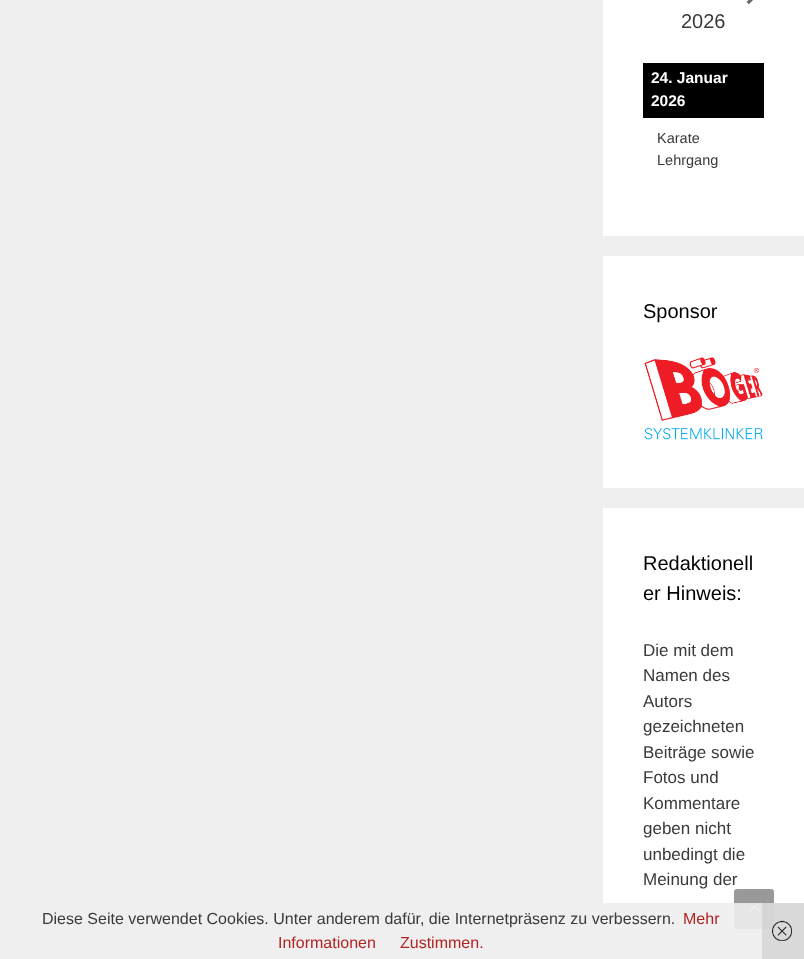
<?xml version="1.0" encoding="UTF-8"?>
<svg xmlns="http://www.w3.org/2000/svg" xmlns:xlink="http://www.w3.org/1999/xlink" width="804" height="959">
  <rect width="100%" height="100%" fill="#efefef" />
  <rect x="603" width="201" height="236" fill="#ffffff" />
  <image x="746" y="0" width="7" height="4" xlink:href="image1.png" />
  <rect x="643" y="63" width="121" height="55" fill="#000000" />
  <rect x="603" y="256" width="201" height="232" fill="#ffffff" />
  <image x="644" y="357" width="119" height="83" xlink:href="image2.png" />
  <rect x="603" y="508" width="201" height="451" fill="#ffffff" />
  <rect x="734" y="889" width="40" height="40" rx="3" fill="#000000" fill-opacity="0.4" />
  <image x="748" y="905" width="12" height="7" xlink:href="image4.png" />
  <rect x="603" y="903" width="201" height="56" fill="#eeeeee" fill-opacity="0.9" />
  <rect x="762" y="903" width="42" height="56" fill="#cccccc" fill-opacity="0.6" />
  <image x="772" y="920" width="20" height="21" xlink:href="image3.png" />
  <text x="681" y="28" style="font-family: Liberation Sans; font-size: 20px; fill: #3a3a3a">2026</text>
  <text x="651" y="83" style="font-family: Liberation Sans; font-size: 15.5px; font-weight: bold; fill: #ffffff">24. Januar</text>
  <text x="651" y="106" style="font-family: Liberation Sans; font-size: 15.5px; font-weight: bold; fill: #ffffff">2026</text>
  <text x="657" y="143" style="font-family: Liberation Sans; font-size: 14.5px; fill: #3a3a3a">Karate</text>
  <text x="657" y="165" style="font-family: Liberation Sans; font-size: 14.5px; fill: #3a3a3a">Lehrgang</text>
  <text x="643" y="318" style="font-family: Liberation Sans; font-size: 20px; fill: #000000">Sponsor</text>
  <text x="643" y="570" style="font-family: Liberation Sans; font-size: 20px; fill: #000000">Redaktionell</text>
  <text x="643" y="600" style="font-family: Liberation Sans; font-size: 20px; fill: #000000">er Hinweis:</text>
  <text x="643" y="656" style="font-family: Liberation Sans; font-size: 17px; fill: #3a3a3a">Die mit dem</text>
  <text x="643" y="681" style="font-family: Liberation Sans; font-size: 17px; fill: #3a3a3a">Namen des</text>
  <text x="643" y="707" style="font-family: Liberation Sans; font-size: 17px; fill: #3a3a3a">Autors</text>
  <text x="643" y="732" style="font-family: Liberation Sans; font-size: 17px; fill: #3a3a3a">gezeichneten</text>
  <text x="643" y="758" style="font-family: Liberation Sans; font-size: 17px; fill: #3a3a3a">Beiträge sowie</text>
  <text x="643" y="783" style="font-family: Liberation Sans; font-size: 17px; fill: #3a3a3a">Fotos und</text>
  <text x="643" y="809" style="font-family: Liberation Sans; font-size: 17px; fill: #3a3a3a">Kommentare</text>
  <text x="643" y="834" style="font-family: Liberation Sans; font-size: 17px; fill: #3a3a3a">geben nicht</text>
  <text x="643" y="860" style="font-family: Liberation Sans; font-size: 17px; fill: #3a3a3a">unbedingt die</text>
  <text x="643" y="885" style="font-family: Liberation Sans; font-size: 17px; fill: #3a3a3a">Meinung der</text>
  <text x="42" y="924" style="font-family: Liberation Sans; font-size: 16px; fill: #3a3a3a">Diese Seite verwendet Cookies. Unter anderem dafür, die Internetpräsenz zu verbessern.</text>
  <text x="683" y="924" style="font-family: Liberation Sans; font-size: 16px; fill: #b12423">Mehr</text>
  <text x="278" y="948" style="font-family: Liberation Sans; font-size: 16px; fill: #b12423">Informationen</text>
  <text x="400" y="948" style="font-family: Liberation Sans; font-size: 16px; fill: #b12423">Zustimmen.</text>
</svg>
